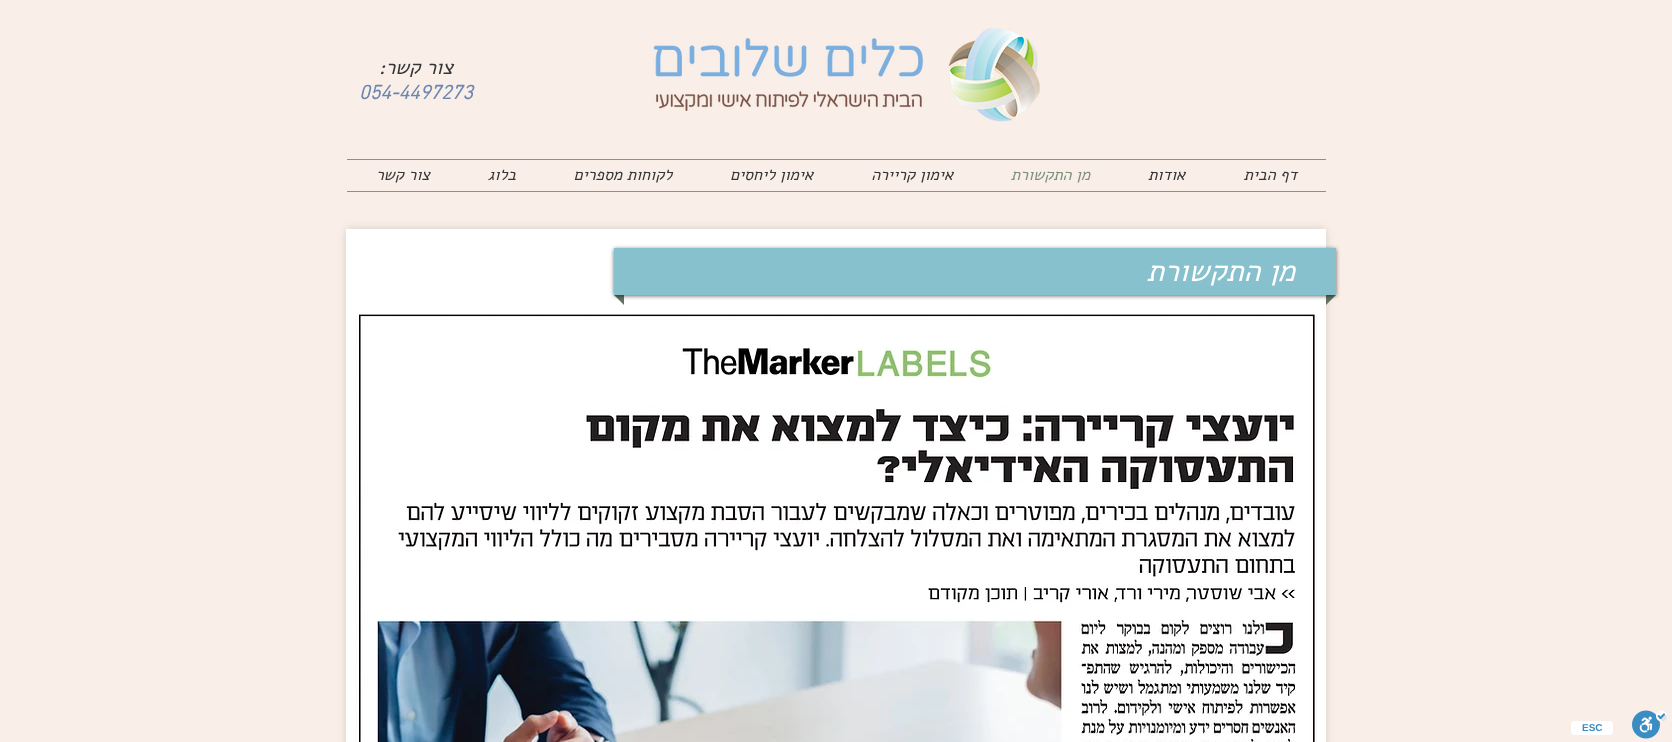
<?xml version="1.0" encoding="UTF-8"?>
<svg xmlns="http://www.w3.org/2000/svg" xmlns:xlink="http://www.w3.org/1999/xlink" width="1672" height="742">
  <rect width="100%" height="100%" fill="#f9efe8" />
  <image x="653" y="28" width="387" height="94" xlink:href="image1.png" />
  <rect x="347" y="159" width="979" height="1" fill="#8e8e8e" />
  <rect x="347" y="191" width="979" height="1" fill="#8e8e8e" />
  <rect x="347" y="230" width="978" height="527" fill="#1e1e1e" fill-opacity="0.2" filter="blur(5px)" />
  <rect x="346" y="229" width="980" height="513" fill="#ffffff" />
  <path d="M 1326 295 h 10 l -10 10 z" fill="#647361" />
  <path d="M 614 295 h 10 v 10 z" fill="#647361" />
  <rect x="614" y="249" width="722" height="47" fill="#000000" fill-opacity="0.6" filter="blur(2px)" />
  <rect x="614" y="248" width="722" height="47" fill="#87c1cd" />
  <image x="356" y="313" width="961" height="429" xlink:href="image2.png" />
  <image x="1632" y="710" width="35" height="29" xlink:href="image3.png" />
  <rect x="1571" y="721" width="42" height="14" rx="4" fill="#ffffff" />
  <text x="453" y="74" style="font-family: Alef; font-size: 20px; font-style: italic; direction: rtl; fill: #363636">צור קשר:</text>
  <text x="359" y="99" style="font-family: 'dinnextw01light'; font-size: 20px; font-weight: bold; font-style: italic; fill: #6b86af">054-4497273</text>
  <text x="1297" y="180" style="font-family: Alef; font-size: 16px; font-style: italic; direction: rtl; fill: #363636">דף הבית</text>
  <text x="1185" y="180" style="font-family: Alef; font-size: 16px; font-style: italic; direction: rtl; fill: #363636">אודות</text>
  <text x="1090" y="180" style="font-family: Alef; font-size: 16px; font-style: italic; direction: rtl; fill: #7f917b">מן התקשורת</text>
  <text x="953" y="180" style="font-family: Alef; font-size: 16px; font-style: italic; direction: rtl; fill: #363636">אימון קריירה</text>
  <text x="813" y="180" style="font-family: Alef; font-size: 16px; font-style: italic; direction: rtl; fill: #363636">אימון ליחסים</text>
  <text x="672" y="180" style="font-family: Alef; font-size: 16px; font-style: italic; direction: rtl; fill: #363636">לקוחות מספרים</text>
  <text x="516" y="180" style="font-family: Alef; font-size: 16px; font-style: italic; direction: rtl; fill: #363636">בלוג</text>
  <text x="430" y="180" style="font-family: Alef; font-size: 16px; font-style: italic; direction: rtl; fill: #363636">צור קשר</text>
  <text x="1295" y="281" style="font-family: Alef; font-size: 30px; font-style: italic; direction: rtl; fill: #ffffff">מן התקשורת</text>
  <text x="1582" y="731" style="font-family: Liberation Sans; font-size: 10px; font-weight: bold; fill: #3a8dc2">ESC</text>
</svg>
